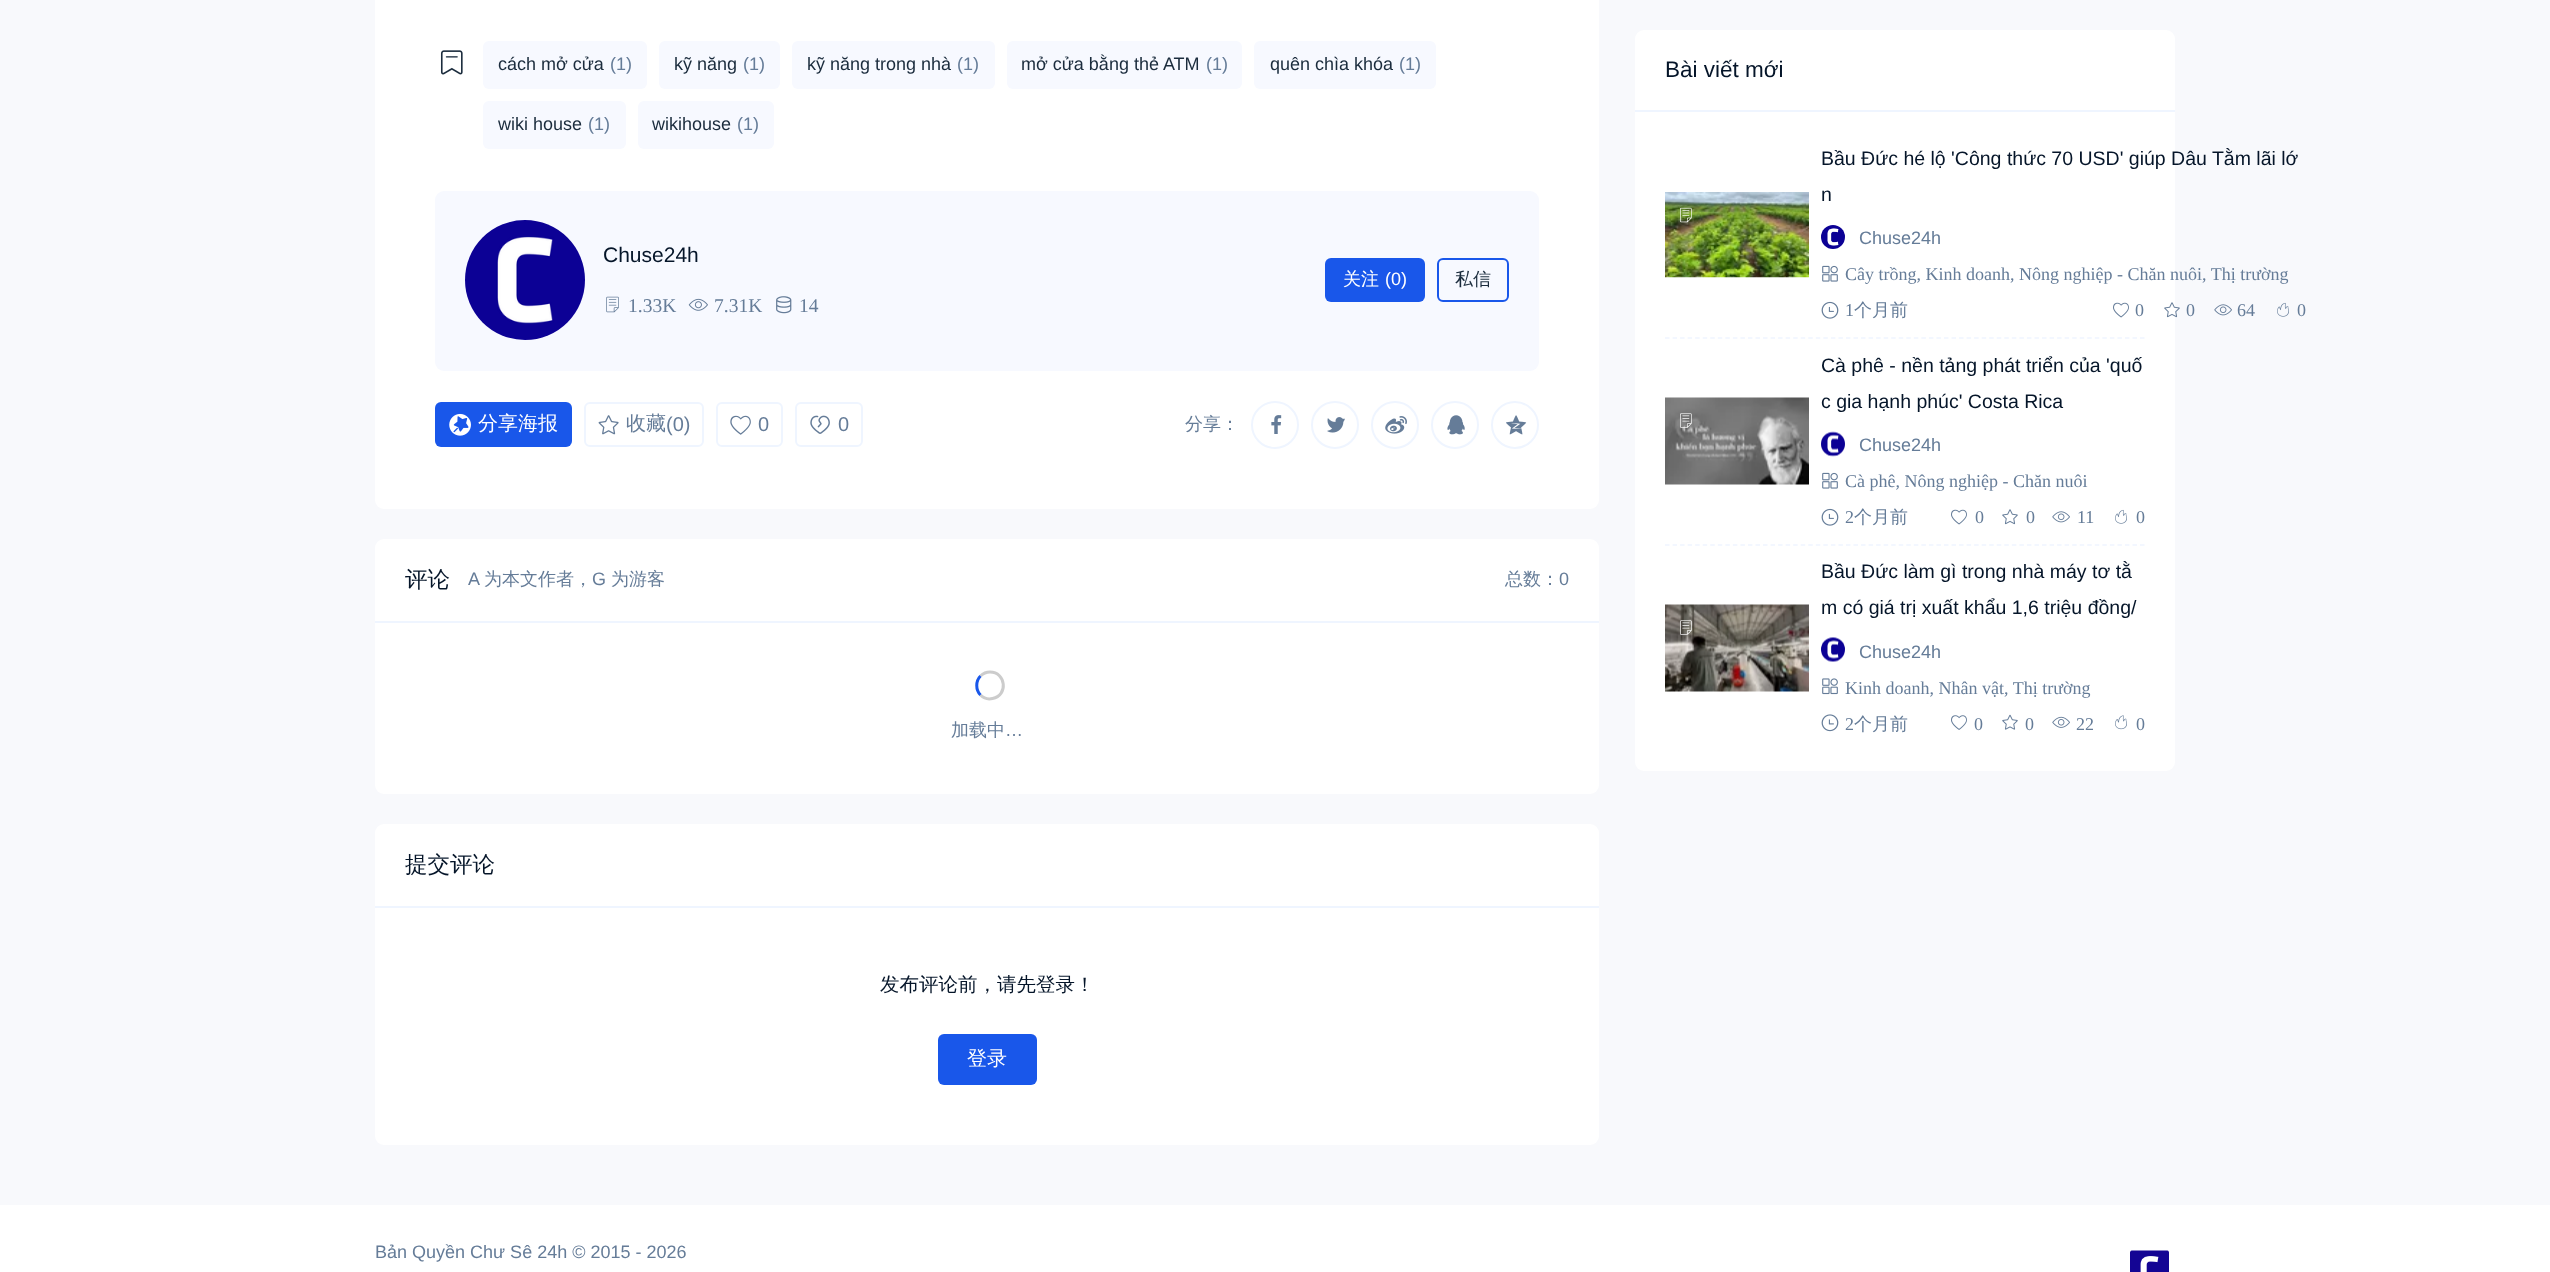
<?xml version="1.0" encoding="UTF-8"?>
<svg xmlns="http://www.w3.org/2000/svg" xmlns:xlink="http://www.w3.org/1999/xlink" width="2550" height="1272">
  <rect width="100%" height="100%" fill="#f8f9fc" />
  <rect x="375" y="-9" width="1224" height="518" rx="9" fill="#ffffff" />
  <image x="440" y="50" width="23" height="25" xlink:href="image1.png" />
  <rect x="483" y="41" width="164" height="48" rx="6" fill="#f7f9ff" />
  <rect x="659" y="41" width="121" height="48" rx="6" fill="#f7f9ff" />
  <rect x="792" y="41" width="203" height="48" rx="6" fill="#f7f9ff" />
  <rect x="1007" y="41" width="235" height="48" rx="6" fill="#f7f9ff" />
  <rect x="1254" y="41" width="182" height="48" rx="6" fill="#f7f9ff" />
  <rect x="483" y="101" width="143" height="48" rx="6" fill="#f7f9ff" />
  <rect x="638" y="101" width="136" height="48" rx="6" fill="#f7f9ff" />
  <rect x="435" y="191" width="1104" height="180" rx="9" fill="#f7f9ff" />
  <image x="465" y="220" width="120" height="120" xlink:href="image2.png" />
  <image x="606" y="296" width="13" height="17" xlink:href="image3.png" />
  <image x="688" y="298" width="20" height="13" xlink:href="image4.png" />
  <image x="776" y="296" width="16" height="18" xlink:href="image5.png" />
  <rect x="1325" y="258" width="100" height="44" rx="6" fill="#1957ea" />
  <rect x="1438" y="259" width="70" height="42" rx="5" fill="none" stroke="#1957ea" stroke-width="2" />
  <rect x="435" y="402" width="137" height="45" rx="6" fill="#1957ea" />
  <image x="449" y="413" width="22" height="23" xlink:href="image6.png" />
  <rect x="585" y="403" width="118" height="43" rx="5" fill="none" stroke="#eff5ff" stroke-width="2" />
  <image x="598" y="415" width="21" height="20" xlink:href="image7.png" />
  <rect x="717" y="403" width="65" height="43" rx="5" fill="none" stroke="#eff5ff" stroke-width="2" />
  <image x="730" y="415" width="21" height="20" xlink:href="image8.png" />
  <rect x="796" y="403" width="66" height="43" rx="5" fill="none" stroke="#eff5ff" stroke-width="2" />
  <image x="810" y="415" width="20" height="19" xlink:href="image9.png" />
  <circle cx="1275" cy="425" r="23" fill="none" stroke="#eff5ff" stroke-width="2" />
  <image x="1271" y="415" width="11" height="19" xlink:href="image10.png" />
  <circle cx="1335" cy="425" r="23" fill="none" stroke="#eff5ff" stroke-width="2" />
  <image x="1327" y="417" width="18" height="16" xlink:href="image11.png" />
  <circle cx="1395" cy="425" r="23" fill="none" stroke="#eff5ff" stroke-width="2" />
  <image x="1385" y="416" width="22" height="18" xlink:href="image12.png" />
  <circle cx="1455" cy="425" r="23" fill="none" stroke="#eff5ff" stroke-width="2" />
  <image x="1447" y="415" width="18" height="20" xlink:href="image13.png" />
  <circle cx="1515" cy="425" r="23" fill="none" stroke="#eff5ff" stroke-width="2" />
  <image x="1506" y="415" width="21" height="20" xlink:href="image14.png" />
  <rect x="375" y="539" width="1224" height="255" rx="9" fill="#ffffff" />
  <rect x="375" y="621" width="1224" height="2" fill="#eff5ff" />
  <path d="M 980.5 676 c 2.5 -2.5 6 -4 9.5 -4 c 16 0 18.5 23.5 2.5 26.5 c -4 1 -9 -0.5 -12 -3.5" fill="none" stroke="#cccccc" stroke-width="3" />
  <path d="M 980.5 695 c -5 -5 -5 -14 0 -19" fill="none" stroke="#1957ea" stroke-width="3" />
  <rect x="375" y="824" width="1224" height="321" rx="9" fill="#ffffff" />
  <rect x="375" y="906" width="1224" height="2" fill="#eff5ff" />
  <rect x="938" y="1034" width="99" height="51" rx="6" fill="#1957ea" />
  <rect x="1635" y="30" width="540" height="741" rx="9" fill="#ffffff" />
  <rect x="1635" y="110" width="540" height="2" fill="#eff5ff" />
  <path d="M 1665 338 h 480" fill="none" stroke="#eff5ff" stroke-width="1.5" stroke-dasharray="4.5 3.04" />
  <image x="1665" y="192" width="144" height="86" xlink:href="image15.png" />
  <image x="1680" y="207" width="12" height="16" xlink:href="image16.png" />
  <image x="1821" y="225" width="24" height="24" xlink:href="image17.png" />
  <image x="1822" y="265" width="16" height="17" xlink:href="image18.png" />
  <image x="1821" y="301" width="18" height="18" xlink:href="image19.png" />
  <image x="2113" y="302" width="16" height="16" xlink:href="image20.png" />
  <image x="2164" y="302" width="16" height="16" xlink:href="image21.png" />
  <image x="2214" y="304" width="18" height="12" xlink:href="image22.png" />
  <image x="2277" y="302" width="12" height="15" xlink:href="image23.png" />
  <path d="M 1665 545 h 480" fill="none" stroke="#eff5ff" stroke-width="1.5" stroke-dasharray="4.5 3.04" />
  <image x="1665" y="397" width="144" height="88" xlink:href="image24.png" />
  <image x="1680" y="413" width="12" height="15" xlink:href="image25.png" />
  <image x="1821" y="431" width="24" height="26" xlink:href="image26.png" />
  <image x="1822" y="472" width="16" height="17" xlink:href="image18.png" />
  <image x="1821" y="508" width="18" height="18" xlink:href="image19.png" />
  <image x="1951" y="509" width="16" height="16" xlink:href="image20.png" />
  <image x="2002" y="509" width="16" height="16" xlink:href="image27.png" />
  <image x="2052" y="511" width="18" height="12" xlink:href="image28.png" />
  <image x="2115" y="509" width="12" height="15" xlink:href="image29.png" />
  <image x="1665" y="604" width="144" height="88" xlink:href="image30.png" />
  <image x="1680" y="620" width="12" height="15" xlink:href="image31.png" />
  <image x="1821" y="637" width="24" height="25" xlink:href="image32.png" />
  <image x="1822" y="678" width="16" height="17" xlink:href="image33.png" />
  <image x="1821" y="714" width="18" height="18" xlink:href="image34.png" />
  <image x="1951" y="715" width="16" height="15" xlink:href="image35.png" />
  <image x="2002" y="714" width="16" height="16" xlink:href="image36.png" />
  <image x="2052" y="716" width="18" height="12" xlink:href="image37.png" />
  <image x="2115" y="715" width="12" height="15" xlink:href="image38.png" />
  <rect y="1205" width="2550" height="67" fill="#ffffff" />
  <image x="2130" y="1250" width="39" height="22" xlink:href="image39.png" />
  <text x="498" y="70" style="font-family: Liberation Sans; font-size: 18px; fill: #1b2c3d">cách mở cửa</text>
  <text x="610" y="70" style="font-family: Liberation Sans; font-size: 18px; fill: #657c98">(1)</text>
  <text x="674" y="70" style="font-family: Liberation Sans; font-size: 18px; fill: #1b2c3d">kỹ năng</text>
  <text x="743" y="70" style="font-family: Liberation Sans; font-size: 18px; fill: #657c98">(1)</text>
  <text x="807" y="70" style="font-family: Liberation Sans; font-size: 18px; fill: #1b2c3d">kỹ năng trong nhà</text>
  <text x="957" y="70" style="font-family: Liberation Sans; font-size: 18px; fill: #657c98">(1)</text>
  <text x="1021" y="70" style="font-family: Liberation Sans; font-size: 18px; fill: #1b2c3d">mở cửa bằng thẻ ATM</text>
  <text x="1206" y="70" style="font-family: Liberation Sans; font-size: 18px; fill: #657c98">(1)</text>
  <text x="1270" y="70" style="font-family: Liberation Sans; font-size: 18px; fill: #1b2c3d">quên chìa khóa</text>
  <text x="1399" y="70" style="font-family: Liberation Sans; font-size: 18px; fill: #657c98">(1)</text>
  <text x="498" y="130" style="font-family: Liberation Sans; font-size: 18px; fill: #1b2c3d">wiki house</text>
  <text x="588" y="130" style="font-family: Liberation Sans; font-size: 18px; fill: #657c98">(1)</text>
  <text x="652" y="130" style="font-family: Liberation Sans; font-size: 18px; fill: #1b2c3d">wikihouse</text>
  <text x="737" y="130" style="font-family: Liberation Sans; font-size: 18px; fill: #657c98">(1)</text>
  <text x="603" y="262" style="font-family: Liberation Sans; font-size: 21px; fill: #051529">Chuse24h</text>
  <text x="628" y="312" style="font-family: Liberation Serif; font-size: 19.5px; fill: #657c98">1.33K</text>
  <text x="714" y="312" style="font-family: Liberation Serif; font-size: 19.5px; fill: #657c98">7.31K</text>
  <text x="799" y="312" style="font-family: Liberation Serif; font-size: 19.5px; fill: #657c98">14</text>
  <text x="1343" y="285" style="font-family: WenQuanYi Zen Hei; font-size: 18px; font-weight: 500; fill: #ffffff">关注</text>
  <text x="1385" y="285" style="font-family: Liberation Sans; font-size: 18px; fill: #ffffff">(0)</text>
  <text x="1455" y="285" style="font-family: WenQuanYi Zen Hei; font-size: 18px; font-weight: 500; fill: #1b2c3d">私信</text>
  <text x="478" y="430" style="font-family: WenQuanYi Zen Hei; font-size: 20px; font-weight: 500; fill: #ffffff">分享海报</text>
  <text x="626" y="430" style="font-family: WenQuanYi Zen Hei; font-size: 20px; font-weight: 500; fill: #657c98">收藏</text>
  <text x="666" y="431" style="font-family: Liberation Sans; font-size: 20px; fill: #657c98">(0)</text>
  <text x="758" y="431" style="font-family: Liberation Sans; font-size: 20px; fill: #657c98">0</text>
  <text x="838" y="431" style="font-family: Liberation Sans; font-size: 20px; fill: #657c98">0</text>
  <text x="1185" y="430" style="font-family: WenQuanYi Zen Hei; font-size: 18px; font-weight: 500; fill: #657c98">分享：</text>
  <text x="405" y="587" style="font-family: WenQuanYi Zen Hei; font-size: 22.5px; font-weight: 500; fill: #051529">评论</text>
  <text x="468" y="585" style="font-family: Liberation Sans; font-size: 18px; fill: #657c98">A</text>
  <text x="484" y="585" style="font-family: WenQuanYi Zen Hei; font-size: 18px; font-weight: 500; fill: #657c98">为本文作者，</text>
  <text x="592" y="585" style="font-family: Liberation Sans; font-size: 18px; fill: #657c98">G</text>
  <text x="611" y="585" style="font-family: WenQuanYi Zen Hei; font-size: 18px; font-weight: 500; fill: #657c98">为游客</text>
  <text x="1505" y="585" style="font-family: WenQuanYi Zen Hei; font-size: 18px; font-weight: 500; fill: #657c98">总数：</text>
  <text x="1559" y="585" style="font-family: Liberation Sans; font-size: 18px; fill: #657c98">0</text>
  <text x="951" y="736" style="font-family: WenQuanYi Zen Hei; font-size: 18px; font-weight: 500; fill: #657c98">加载中</text>
  <text x="1005" y="736" style="font-family: Liberation Sans; font-size: 18px; fill: #657c98">…</text>
  <text x="405" y="872" style="font-family: WenQuanYi Zen Hei; font-size: 22.5px; font-weight: 500; fill: #051529">提交评论</text>
  <text x="880" y="991" style="font-family: WenQuanYi Zen Hei; font-size: 19.5px; font-weight: 500; fill: #051529">发布评论前，请先登录！</text>
  <text x="967" y="1065" style="font-family: WenQuanYi Zen Hei; font-size: 20px; font-weight: 500; fill: #ffffff">登录</text>
  <text x="1665" y="77" style="font-family: Liberation Sans; font-size: 22.5px; fill: #051529">Bài viết mới</text>
  <text x="1821" y="165" style="font-family: Liberation Sans; font-size: 19.5px; fill: #051529">Bầu Đức hé lộ 'Công thức 70 USD' giúp Dâu Tằm lãi lớ</text>
  <text x="1821" y="201" style="font-family: Liberation Sans; font-size: 19.5px; fill: #051529">n</text>
  <text x="1859" y="244" style="font-family: Liberation Sans; font-size: 18px; fill: #657c98">Chuse24h</text>
  <text x="1845" y="280" style="font-family: Liberation Serif; font-size: 18px; fill: #657c98">Cây trồng, Kinh doanh, Nông nghiệp - Chăn nuôi, Thị trường</text>
  <text x="1845" y="316" style="font-family: Liberation Serif; font-size: 18px; fill: #657c98">1</text>
  <text x="1854" y="316" style="font-family: WenQuanYi Zen Hei; font-size: 18px; font-weight: 500; fill: #657c98">个月前</text>
  <text x="2135" y="316" style="font-family: Liberation Serif; font-size: 18px; fill: #657c98">0</text>
  <text x="2186" y="316" style="font-family: Liberation Serif; font-size: 18px; fill: #657c98">0</text>
  <text x="2237" y="316" style="font-family: Liberation Serif; font-size: 18px; fill: #657c98">64</text>
  <text x="2297" y="316" style="font-family: Liberation Serif; font-size: 18px; fill: #657c98">0</text>
  <text x="1821" y="372" style="font-family: Liberation Sans; font-size: 19.5px; fill: #051529">Cà phê - nền tảng phát triển của 'quố</text>
  <text x="1821" y="408" style="font-family: Liberation Sans; font-size: 19.5px; fill: #051529">c gia hạnh phúc' Costa Rica</text>
  <text x="1859" y="451" style="font-family: Liberation Sans; font-size: 18px; fill: #657c98">Chuse24h</text>
  <text x="1845" y="487" style="font-family: Liberation Serif; font-size: 18px; fill: #657c98">Cà phê, Nông nghiệp - Chăn nuôi</text>
  <text x="1845" y="523" style="font-family: Liberation Serif; font-size: 18px; fill: #657c98">2</text>
  <text x="1854" y="523" style="font-family: WenQuanYi Zen Hei; font-size: 18px; font-weight: 500; fill: #657c98">个月前</text>
  <text x="1975" y="523" style="font-family: Liberation Serif; font-size: 18px; fill: #657c98">0</text>
  <text x="2026" y="523" style="font-family: Liberation Serif; font-size: 18px; fill: #657c98">0</text>
  <text x="2077" y="523" style="font-family: Liberation Serif; font-size: 18px; fill: #657c98">11</text>
  <text x="2136" y="523" style="font-family: Liberation Serif; font-size: 18px; fill: #657c98">0</text>
  <text x="1821" y="578" style="font-family: Liberation Sans; font-size: 19.5px; fill: #051529">Bầu Đức làm gì trong nhà máy tơ tằ</text>
  <text x="1821" y="614" style="font-family: Liberation Sans; font-size: 19.5px; fill: #051529">m có giá trị xuất khẩu 1,6 triệu đồng/</text>
  <text x="1859" y="658" style="font-family: Liberation Sans; font-size: 18px; fill: #657c98">Chuse24h</text>
  <text x="1845" y="694" style="font-family: Liberation Serif; font-size: 18px; fill: #657c98">Kinh doanh, Nhân vật, Thị trường</text>
  <text x="1845" y="730" style="font-family: Liberation Serif; font-size: 18px; fill: #657c98">2</text>
  <text x="1854" y="730" style="font-family: WenQuanYi Zen Hei; font-size: 18px; font-weight: 500; fill: #657c98">个月前</text>
  <text x="1974" y="730" style="font-family: Liberation Serif; font-size: 18px; fill: #657c98">0</text>
  <text x="2025" y="730" style="font-family: Liberation Serif; font-size: 18px; fill: #657c98">0</text>
  <text x="2076" y="730" style="font-family: Liberation Serif; font-size: 18px; fill: #657c98">22</text>
  <text x="2136" y="730" style="font-family: Liberation Serif; font-size: 18px; fill: #657c98">0</text>
  <text x="375" y="1258" style="font-family: Liberation Sans; font-size: 18px; fill: #657c98">Bản Quyền Chư Sê 24h © 2015 - 2026</text>
</svg>
